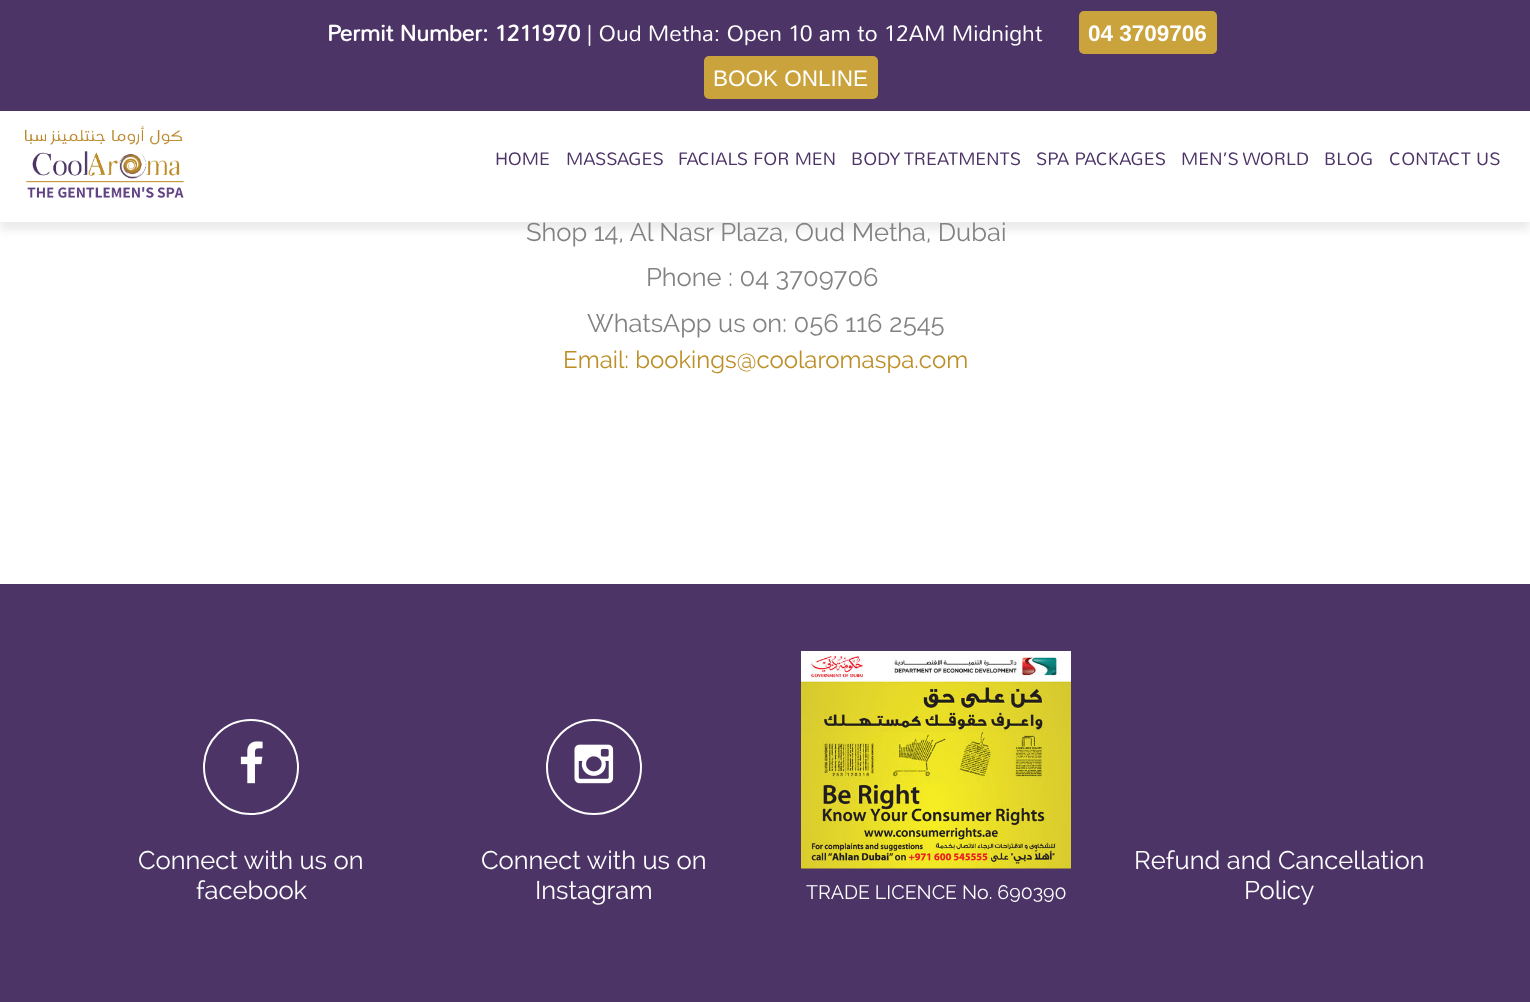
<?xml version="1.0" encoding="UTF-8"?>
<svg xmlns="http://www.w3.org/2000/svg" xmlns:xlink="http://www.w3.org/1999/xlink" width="1530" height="1002">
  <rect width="100%" height="100%" fill="#ffffff" />
  <rect y="8" width="1530" height="222" fill="#000000" fill-opacity="0.08" filter="blur(4px)" />
  <rect y="111" width="1530" height="111" fill="#ffffff" />
  <rect width="1530" height="111" fill="#4c3467" />
  <rect x="1079" y="11" width="138" height="43" rx="5" fill="#cba33c" />
  <rect x="704" y="56" width="174" height="43" rx="5" fill="#cba33c" />
  <image x="25" y="126" width="159" height="72" xlink:href="image1.png" />
  <rect y="584" width="1530" height="418" fill="#4c3467" />
  <circle cx="251" cy="767" r="47" fill="none" stroke="#ffffff" stroke-width="2" />
  <image x="240" y="741" width="23" height="43" xlink:href="image2.png" />
  <circle cx="594" cy="767" r="47" fill="none" stroke="#ffffff" stroke-width="2" />
  <image x="574" y="744" width="40" height="40" xlink:href="image3.png" />
  <image x="801" y="651" width="270" height="218" xlink:href="image4.png" />
  <text x="327" y="41" style="font-family: Nunito; font-size: 22.5px; font-weight: bold; fill: #ffffff">Permit Number: 1211970</text>
  <text x="587" y="41" style="font-family: Nunito; font-size: 22.5px; font-weight: 300; fill: #ffffff">| Oud Metha: Open 10 am to 12AM Midnight</text>
  <text x="1088" y="41" style="font-family: Liberation Sans; font-size: 22.5px; font-weight: bold; fill: #ffffff">04 3709706</text>
  <text x="713" y="86" style="font-family: Liberation Sans; font-size: 22.5px; fill: #ffffff">BOOK ONLINE</text>
  <text x="495" y="165" style="font-family: Nunito; font-size: 18px; font-weight: 300; fill: #4c3467">HOME</text>
  <text x="566" y="165" style="font-family: Nunito; font-size: 18px; font-weight: 300; fill: #4c3467">MASSAGES</text>
  <text x="678" y="165" style="font-family: Nunito; font-size: 18px; font-weight: 300; fill: #4c3467">FACIALS FOR MEN</text>
  <text x="851" y="165" style="font-family: Nunito; font-size: 18px; font-weight: 300; fill: #4c3467">BODY TREATMENTS</text>
  <text x="1036" y="165" style="font-family: Nunito; font-size: 18px; font-weight: 300; fill: #4c3467">SPA PACKAGES</text>
  <text x="1181" y="165" style="font-family: Nunito; font-size: 18px; font-weight: 300; fill: #4c3467">MEN’S WORLD</text>
  <text x="1324" y="165" style="font-family: Nunito; font-size: 18px; font-weight: 300; fill: #4c3467">BLOG</text>
  <text x="1389" y="165" style="font-family: Nunito; font-size: 18px; font-weight: 300; fill: #4c3467">CONTACT US</text>
  <text x="526" y="241" style="font-family: Raleway; font-size: 25.5px; fill: #828282">Shop 14, Al Nasr Plaza, Oud Metha, Dubai</text>
  <text x="646" y="286" style="font-family: Raleway; font-size: 25.5px; fill: #828282">Phone : 04 3709706</text>
  <text x="587" y="332" style="font-family: Raleway; font-size: 25.5px; fill: #828282">WhatsApp us on: 056 116 2545</text>
  <text x="563" y="368" style="font-family: Raleway; font-size: 24px; fill: #bd8e26">Email: bookings@coolaromaspa.com</text>
  <text x="138" y="869" style="font-family: Raleway; font-size: 25.5px; fill: #ffffff">Connect with us on</text>
  <text x="196" y="899" style="font-family: Raleway; font-size: 25.5px; fill: #ffffff">facebook</text>
  <text x="481" y="869" style="font-family: Raleway; font-size: 25.5px; fill: #ffffff">Connect with us on</text>
  <text x="535" y="899" style="font-family: Raleway; font-size: 25.5px; fill: #ffffff">Instagram</text>
  <text x="806" y="899" style="font-family: Raleway; font-size: 19.5px; fill: #ffffff">TRADE LICENCE No. 690390</text>
  <text x="1134" y="869" style="font-family: Raleway; font-size: 25.5px; fill: #ffffff">Refund and Cancellation</text>
  <text x="1244" y="899" style="font-family: Raleway; font-size: 25.5px; fill: #ffffff">Policy</text>
</svg>
